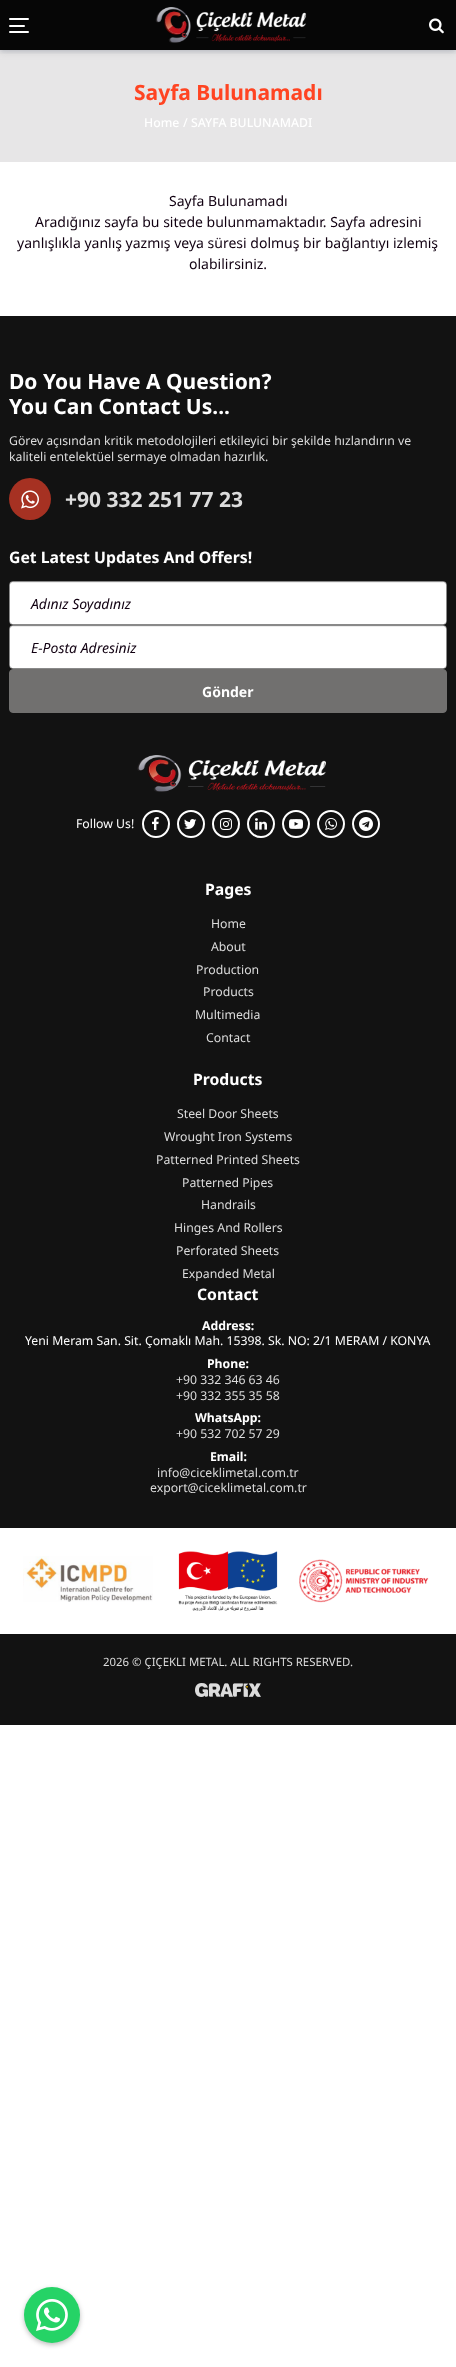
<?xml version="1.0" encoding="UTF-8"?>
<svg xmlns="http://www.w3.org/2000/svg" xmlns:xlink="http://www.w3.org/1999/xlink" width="456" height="2367">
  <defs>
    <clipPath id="clip1"><rect x="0" y="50" width="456" height="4" /></clipPath>
  </defs>
  <rect width="100%" height="100%" fill="#ffffff" />
  <rect y="50" width="456" height="112" fill="#e7e6e7" />
  <rect y="1" width="456" height="50" fill="#71706f" fill-opacity="0.25" filter="blur(4px)" />
  <rect width="456" height="50" fill="#060606" />
  <g clip-path="url(#clip1)">
    <rect y="2" width="456" height="50" fill="#031b4e" fill-opacity="0.1" filter="blur(2px)" />
  </g>
  <rect x="9" y="18" width="20" height="2" rx="1" fill="#ffffff" />
  <rect x="9" y="25" width="16" height="2" rx="1" fill="#ffffff" />
  <rect x="9" y="31" width="20" height="2" rx="1" fill="#ffffff" />
  <image x="155" y="7" width="152" height="36" xlink:href="image1.png" />
  <image x="429" y="18" width="15" height="16" xlink:href="image2.png" />
  <rect y="316" width="456" height="1409" fill="#121212" />
  <circle cx="30" cy="499" r="21" fill="#a63122" />
  <image x="21" y="490" width="18" height="19" xlink:href="image3.png" />
  <rect x="10" y="582" width="436" height="42" rx="2.5" fill="#ffffff" />
  <path d="M 12 583 h 432 c 1 0 2 1 2 3 c 0 -2 0 -4 -2 -4 h -432 l -2 1 v 3 c 0 -2 1 -3 2 -3 z" fill="#000000" fill-opacity="0.07" />
  <rect x="9.5" y="581.5" width="437" height="43" rx="3.5" fill="none" stroke="#ffffff" stroke-opacity="0.5" />
  <rect x="10" y="626" width="436" height="42" rx="2.5" fill="#ffffff" />
  <path d="M 12 627 h 432 c 1 0 2 1 2 3 c 0 -2 0 -4 -2 -4 h -432 l -2 1 v 3 c 0 -2 1 -3 2 -3 z" fill="#000000" fill-opacity="0.07" />
  <rect x="9.5" y="625.5" width="437" height="43" rx="3.5" fill="none" stroke="#ffffff" stroke-opacity="0.5" />
  <rect x="9.5" y="669.5" width="437" height="43" rx="3.5" fill="#71706f" stroke="#71706f" />
  <image x="137" y="755" width="189" height="37" xlink:href="image4.png" />
  <circle cx="156" cy="824" r="13" fill="none" stroke="#ffffff" stroke-width="2" />
  <image x="152" y="817" width="7" height="13" xlink:href="image5.png" />
  <circle cx="191" cy="824" r="13" fill="none" stroke="#ffffff" stroke-width="2" />
  <image x="184" y="819" width="13" height="10" xlink:href="image6.png" />
  <circle cx="226" cy="824" r="13" fill="none" stroke="#ffffff" stroke-width="2" />
  <image x="220" y="818" width="12" height="12" xlink:href="image7.png" />
  <circle cx="261" cy="824" r="13" fill="none" stroke="#ffffff" stroke-width="2" />
  <image x="255" y="818" width="12" height="12" xlink:href="image8.png" />
  <circle cx="296" cy="824" r="13" fill="none" stroke="#ffffff" stroke-width="2" />
  <image x="289" y="819" width="14" height="10" xlink:href="image9.png" />
  <circle cx="331" cy="824" r="13" fill="none" stroke="#ffffff" stroke-width="2" />
  <image x="325" y="818" width="12" height="12" xlink:href="image10.png" />
  <circle cx="366" cy="824" r="13" fill="none" stroke="#ffffff" stroke-width="2" />
  <image x="359" y="817" width="14" height="14" xlink:href="image11.png" />
  <rect y="1528" width="456" height="106" fill="#ffffff" />
  <image x="23" y="1556" width="130" height="46" xlink:href="image12.png" />
  <image x="178" y="1551" width="100" height="60" xlink:href="image13.png" />
  <image x="299" y="1559" width="130" height="44" xlink:href="image14.png" />
  <image x="195" y="1683" width="66" height="14" xlink:href="image15.png" />
  <rect x="24" y="2289" width="56" height="56" rx="28" fill="#000000" fill-opacity="0.26" filter="blur(2.5px)" />
  <circle cx="52" cy="2315" r="28" fill="#25d366" />
  <image x="36" y="2299" width="32" height="32" xlink:href="image16.png" />
  <text x="134" y="100" style="font-family: Noto Sans; font-size: 21px; font-weight: bold; fill: #ff4422">Sayfa Bulunamadı</text>
  <text x="144" y="127" style="font-family: Noto Sans; font-size: 12.25px; font-weight: 500; fill: #ffffff">Home</text>
  <text x="183" y="127" style="font-family: Noto Sans; font-size: 12.25px; font-weight: 500; fill: #ffffff">/</text>
  <text x="191" y="127" style="font-family: Noto Sans; font-size: 12.25px; font-weight: 500; fill: #ffffff">SAYFA BULUNAMADI</text>
  <text x="169" y="206" style="font-family: Noto Sans; font-size: 14px; fill: #110011">Sayfa Bulunamadı</text>
  <text x="35" y="227" style="font-family: Noto Sans; font-size: 14px; fill: #110011">Aradığınız sayfa bu sitede bulunmamaktadır. Sayfa adresini</text>
  <text x="17" y="248" style="font-family: Noto Sans; font-size: 14px; fill: #110011">yanlışlıkla yanlış yazmış veya süresi dolmuş bir bağlantıyı izlemiş</text>
  <text x="189" y="269" style="font-family: Noto Sans; font-size: 14px; fill: #110011">olabilirsiniz.</text>
  <text x="9" y="389" style="font-family: Noto Sans; font-size: 21px; font-weight: bold; fill: #ffffff">Do You Have A Question?</text>
  <text x="9" y="414" style="font-family: Noto Sans; font-size: 21px; font-weight: bold; fill: #ffffff">You Can Contact Us...</text>
  <text x="9" y="445" style="font-family: Noto Sans; font-size: 12.25px; fill: #dcdcdc">Görev açısından kritik metodolojileri etkileyici bir şekilde hızlandırın ve</text>
  <text x="9" y="461" style="font-family: Noto Sans; font-size: 12.25px; fill: #dcdcdc">kaliteli entelektüel sermaye olmadan hazırlık.</text>
  <text x="65" y="507" style="font-family: Noto Sans; font-size: 21px; font-weight: bold; fill: #dcdcdc">+90 332 251 77 23</text>
  <text x="9" y="563" style="font-family: Noto Sans; font-size: 15.75px; font-weight: bold; fill: #ffffff">Get Latest Updates And Offers!</text>
  <text x="31" y="609" style="font-family: Noto Sans; font-size: 14px; font-style: italic; fill: #110011">Adınız Soyadınız</text>
  <text x="31" y="653" style="font-family: Noto Sans; font-size: 14px; font-style: italic; fill: #110011">E-Posta Adresiniz</text>
  <text x="202" y="697" style="font-family: Noto Sans; font-size: 14px; font-weight: bold; fill: #ffffff">Gönder</text>
  <text x="76" y="828" style="font-family: Noto Sans; font-size: 12.25px; fill: #ffffff">Follow Us!</text>
  <text x="205" y="895" style="font-family: Noto Sans; font-size: 15.75px; font-weight: bold; fill: #ffffff">Pages</text>
  <text x="211" y="928" style="font-family: Noto Sans; font-size: 12.25px; fill: #dcdcdc">Home</text>
  <text x="211" y="951" style="font-family: Noto Sans; font-size: 12.25px; fill: #dcdcdc">About</text>
  <text x="196" y="974" style="font-family: Noto Sans; font-size: 12.25px; fill: #dcdcdc">Production</text>
  <text x="203" y="996" style="font-family: Noto Sans; font-size: 12.25px; fill: #dcdcdc">Products</text>
  <text x="195" y="1019" style="font-family: Noto Sans; font-size: 12.25px; fill: #dcdcdc">Multimedia</text>
  <text x="206" y="1042" style="font-family: Noto Sans; font-size: 12.25px; fill: #dcdcdc">Contact</text>
  <text x="193" y="1085" style="font-family: Noto Sans; font-size: 15.75px; font-weight: bold; fill: #ffffff">Products</text>
  <text x="177" y="1118" style="font-family: Noto Sans; font-size: 12.25px; fill: #dcdcdc">Steel Door Sheets</text>
  <text x="164" y="1141" style="font-family: Noto Sans; font-size: 12.25px; fill: #dcdcdc">Wrought Iron Systems</text>
  <text x="156" y="1164" style="font-family: Noto Sans; font-size: 12.25px; fill: #dcdcdc">Patterned Printed Sheets</text>
  <text x="182" y="1187" style="font-family: Noto Sans; font-size: 12.25px; fill: #dcdcdc">Patterned Pipes</text>
  <text x="201" y="1209" style="font-family: Noto Sans; font-size: 12.25px; fill: #dcdcdc">Handrails</text>
  <text x="174" y="1232" style="font-family: Noto Sans; font-size: 12.25px; fill: #dcdcdc">Hinges And Rollers</text>
  <text x="176" y="1255" style="font-family: Noto Sans; font-size: 12.25px; fill: #dcdcdc">Perforated Sheets</text>
  <text x="182" y="1278" style="font-family: Noto Sans; font-size: 12.25px; fill: #dcdcdc">Expanded Metal</text>
  <text x="197" y="1300" style="font-family: Noto Sans; font-size: 15.75px; font-weight: bold; fill: #ffffff">Contact</text>
  <text x="202" y="1330" style="font-family: Noto Sans; font-size: 12.25px; font-weight: bold; fill: #ffffff">Address:</text>
  <text x="25" y="1345" style="font-family: Noto Sans; font-size: 12.25px; fill: #ffffff">Yeni Meram San. Sit. Çomaklı Mah. 15398. Sk. NO: 2/1 MERAM / KONYA</text>
  <text x="207" y="1368" style="font-family: Noto Sans; font-size: 12.25px; font-weight: bold; fill: #ffffff">Phone:</text>
  <text x="176" y="1384" style="font-family: Noto Sans; font-size: 12.25px; fill: #dcdcdc">+90 332 346 63 46</text>
  <text x="176" y="1400" style="font-family: Noto Sans; font-size: 12.25px; fill: #dcdcdc">+90 332 355 35 58</text>
  <text x="195" y="1422" style="font-family: Noto Sans; font-size: 12.25px; font-weight: bold; fill: #ffffff">WhatsApp:</text>
  <text x="176" y="1438" style="font-family: Noto Sans; font-size: 12.25px; fill: #dcdcdc">+90 532 702 57 29</text>
  <text x="210" y="1461" style="font-family: Noto Sans; font-size: 12.25px; font-weight: bold; fill: #ffffff">Email:</text>
  <text x="157" y="1477" style="font-family: Noto Sans; font-size: 12.25px; fill: #dcdcdc">info@ciceklimetal.com.tr</text>
  <text x="150" y="1492" style="font-family: Noto Sans; font-size: 12.25px; fill: #dcdcdc">export@ciceklimetal.com.tr</text>
  <text x="103" y="1666" style="font-family: Noto Sans; font-size: 11.4px; fill: #dcdcdc">2026 © ÇIÇEKLI METAL. ALL RIGHTS RESERVED.</text>
</svg>
